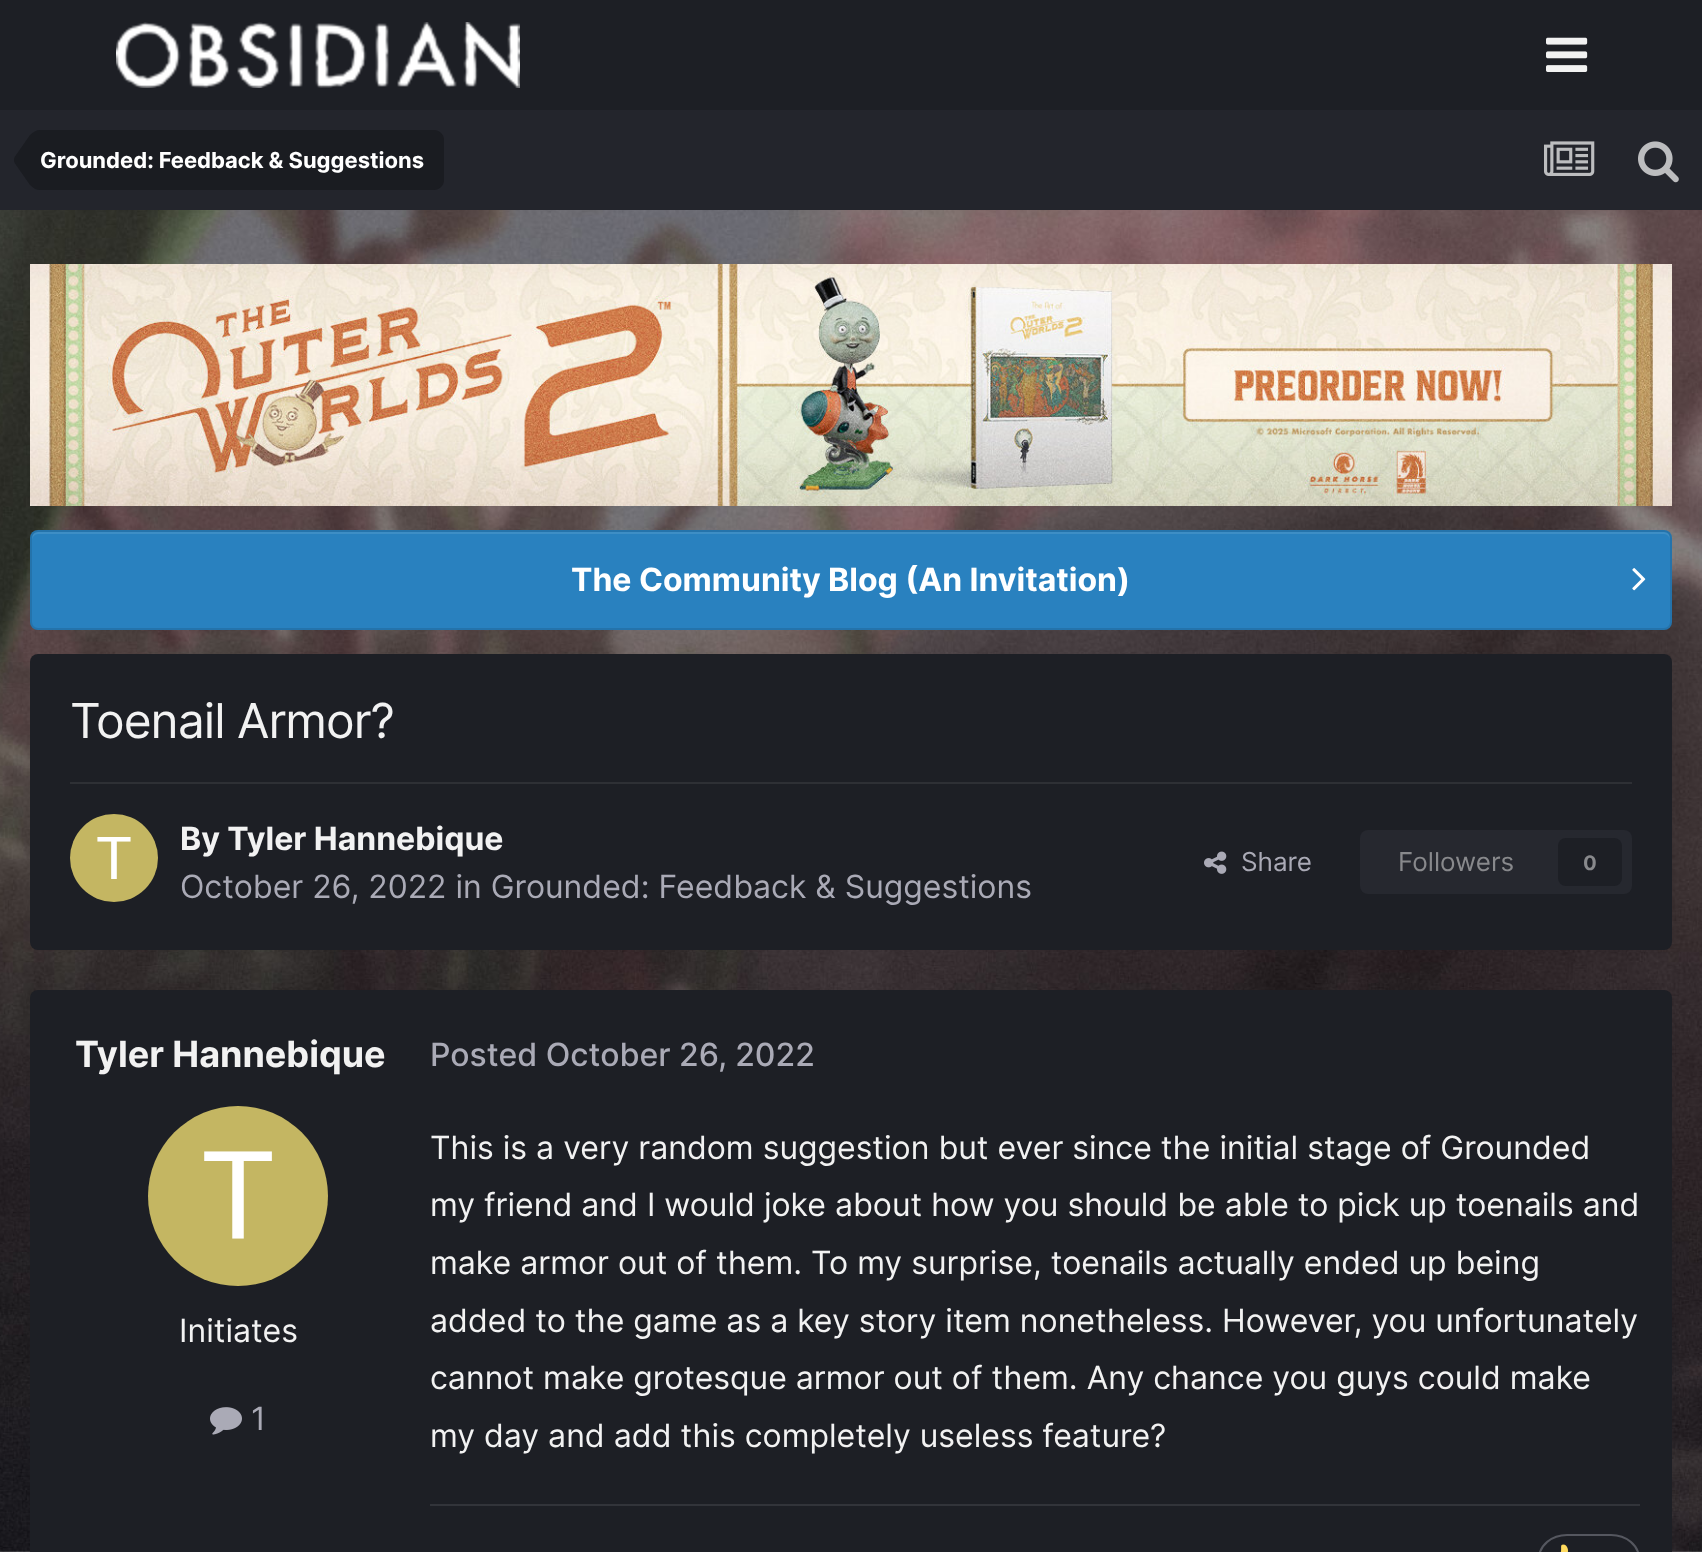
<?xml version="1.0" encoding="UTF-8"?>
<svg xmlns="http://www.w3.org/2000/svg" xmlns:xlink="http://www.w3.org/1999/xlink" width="1702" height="1552">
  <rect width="100%" height="100%" fill="#ffffff" />
  <rect width="1702" height="110" fill="#1d1f25" />
  <image x="116" y="22" width="404" height="66" xlink:href="image1.png" />
  <image x="1546" y="37" width="42" height="35" xlink:href="image2.png" />
  <rect y="110" width="1702" height="100" fill="#23252c" />
  <path d="M 40 130 h 394 c 5.5 0 10 4.5 10 10 v 40 c 0 5.5 -4.5 10 -10 10 h -394 z" fill="#1a1c21" />
  <path d="M 40 160 v 30 c -3.5 0 -7 -2 -10 -5 l -15 -21.5 c -0.5 -1 -1 -2 -1 -3.5 z m 0 0 h -26 c 0 -1.5 0.5 -2.5 1 -3.5 l 15 -21.5 c 3 -3 6.5 -5 10 -5 z" fill="#1a1c21" />
  <image x="1544" y="141" width="51" height="35" xlink:href="image3.png" />
  <image x="1638" y="141" width="41" height="42" xlink:href="image4.png" />
  <image x="0" y="210" width="1702" height="1342" xlink:href="image5.png" />
  <image x="30" y="264" width="1642" height="242" xlink:href="image6.png" />
  <rect x="30" y="530" width="1642" height="100" rx="8" fill="#2981bf" />
  <path d="M 38 534 h 1626 c 3 0 6 3 6 6 c 0 -4 -1 -8 -6 -8 h -1626 c -5 0 -6 4 -6 8 c 0 -3 3 -6 6 -6 z" fill="#3e8ec5" />
  <rect x="31" y="531" width="1640" height="98" rx="7" fill="none" stroke="#000000" stroke-opacity="0.1" stroke-width="2" />
  <image x="1632" y="568" width="14" height="23" xlink:href="image7.png" />
  <rect x="30" y="654" width="1642" height="296" rx="8" fill="#1d1f25" />
  <rect x="70" y="782" width="1562" height="2" fill="#2e3035" />
  <image x="70" y="814" width="88" height="88" xlink:href="image8.png" />
  <image x="1204" y="851" width="23" height="23" xlink:href="image9.png" />
  <rect x="1360" y="830" width="272" height="64" rx="8" fill="#26282f" />
  <rect x="1558" y="838" width="64" height="48" rx="8" fill="#1d1f25" />
  <rect x="30" y="990" width="1642" height="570" rx="8" fill="#1d1f25" />
  <image x="148" y="1106" width="180" height="180" xlink:href="image10.png" />
  <image x="210" y="1407" width="32" height="28" xlink:href="image11.png" />
  <rect x="430" y="1504" width="1210" height="2" fill="#32343a" />
  <rect x="1539" y="1535" width="100" height="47" rx="28" fill="none" stroke="#55575f" stroke-width="2" />
  <image x="1560" y="1544" width="9" height="8" xlink:href="image12.png" />
  <text x="40" y="168" style="font-family: Inter; font-size: 22px; font-weight: bold; fill: #ffffff">Grounded: Feedback &amp; Suggestions</text>
  <text x="571" y="591" style="font-family: Inter; font-size: 32px; font-weight: bold; fill: #ffffff">The Community Blog (An Invitation)</text>
  <text x="70" y="738" style="font-family: Inter; font-size: 48px; letter-spacing: -1px; fill: #f2f2f2">Toenail Armor?</text>
  <text x="180" y="850" style="font-family: Inter; font-size: 32px; font-weight: bold; fill: #f2f2f2">By Tyler Hannebique</text>
  <text x="180" y="898" style="font-family: Inter; font-size: 32px; fill: #aaaab6">October 26, 2022 in Grounded: Feedback &amp; Suggestions</text>
  <text x="1241" y="871" style="font-family: Inter; font-size: 26px; fill: #aaaab6">Share</text>
  <text x="1398" y="871" style="font-family: Inter; font-size: 26px; fill: #88898c">Followers</text>
  <text x="1583" y="870" style="font-family: Inter; font-size: 20px; font-weight: bold; fill: #88898c">0</text>
  <text x="75" y="1067" style="font-family: Inter; font-size: 36px; font-weight: bold; fill: #f2f2f2">Tyler Hannebique</text>
  <text x="179" y="1342" style="font-family: Inter; font-size: 32px; fill: #f2f2f2">Initiates</text>
  <text x="251" y="1430" style="font-family: Inter; font-size: 32px; fill: #aaaab6">1</text>
  <text x="430" y="1066" style="font-family: Inter; font-size: 32px; font-weight: 500; fill: #aaaab6">Posted October 26, 2022</text>
  <text x="430" y="1159" style="font-family: Inter; font-size: 32px; fill: #f2f2f2">This is a very random suggestion but ever since the initial stage of Grounded</text>
  <text x="430" y="1216" style="font-family: Inter; font-size: 32px; fill: #f2f2f2">my friend and I would joke about how you should be able to pick up toenails and</text>
  <text x="430" y="1274" style="font-family: Inter; font-size: 32px; fill: #f2f2f2">make armor out of them. To my surprise, toenails actually ended up being</text>
  <text x="430" y="1332" style="font-family: Inter; font-size: 32px; fill: #f2f2f2">added to the game as a key story item nonetheless. However, you unfortunately</text>
  <text x="430" y="1389" style="font-family: Inter; font-size: 32px; fill: #f2f2f2">cannot make grotesque armor out of them. Any chance you guys could make</text>
  <text x="430" y="1447" style="font-family: Inter; font-size: 32px; fill: #f2f2f2">my day and add this completely useless feature?</text>
</svg>
